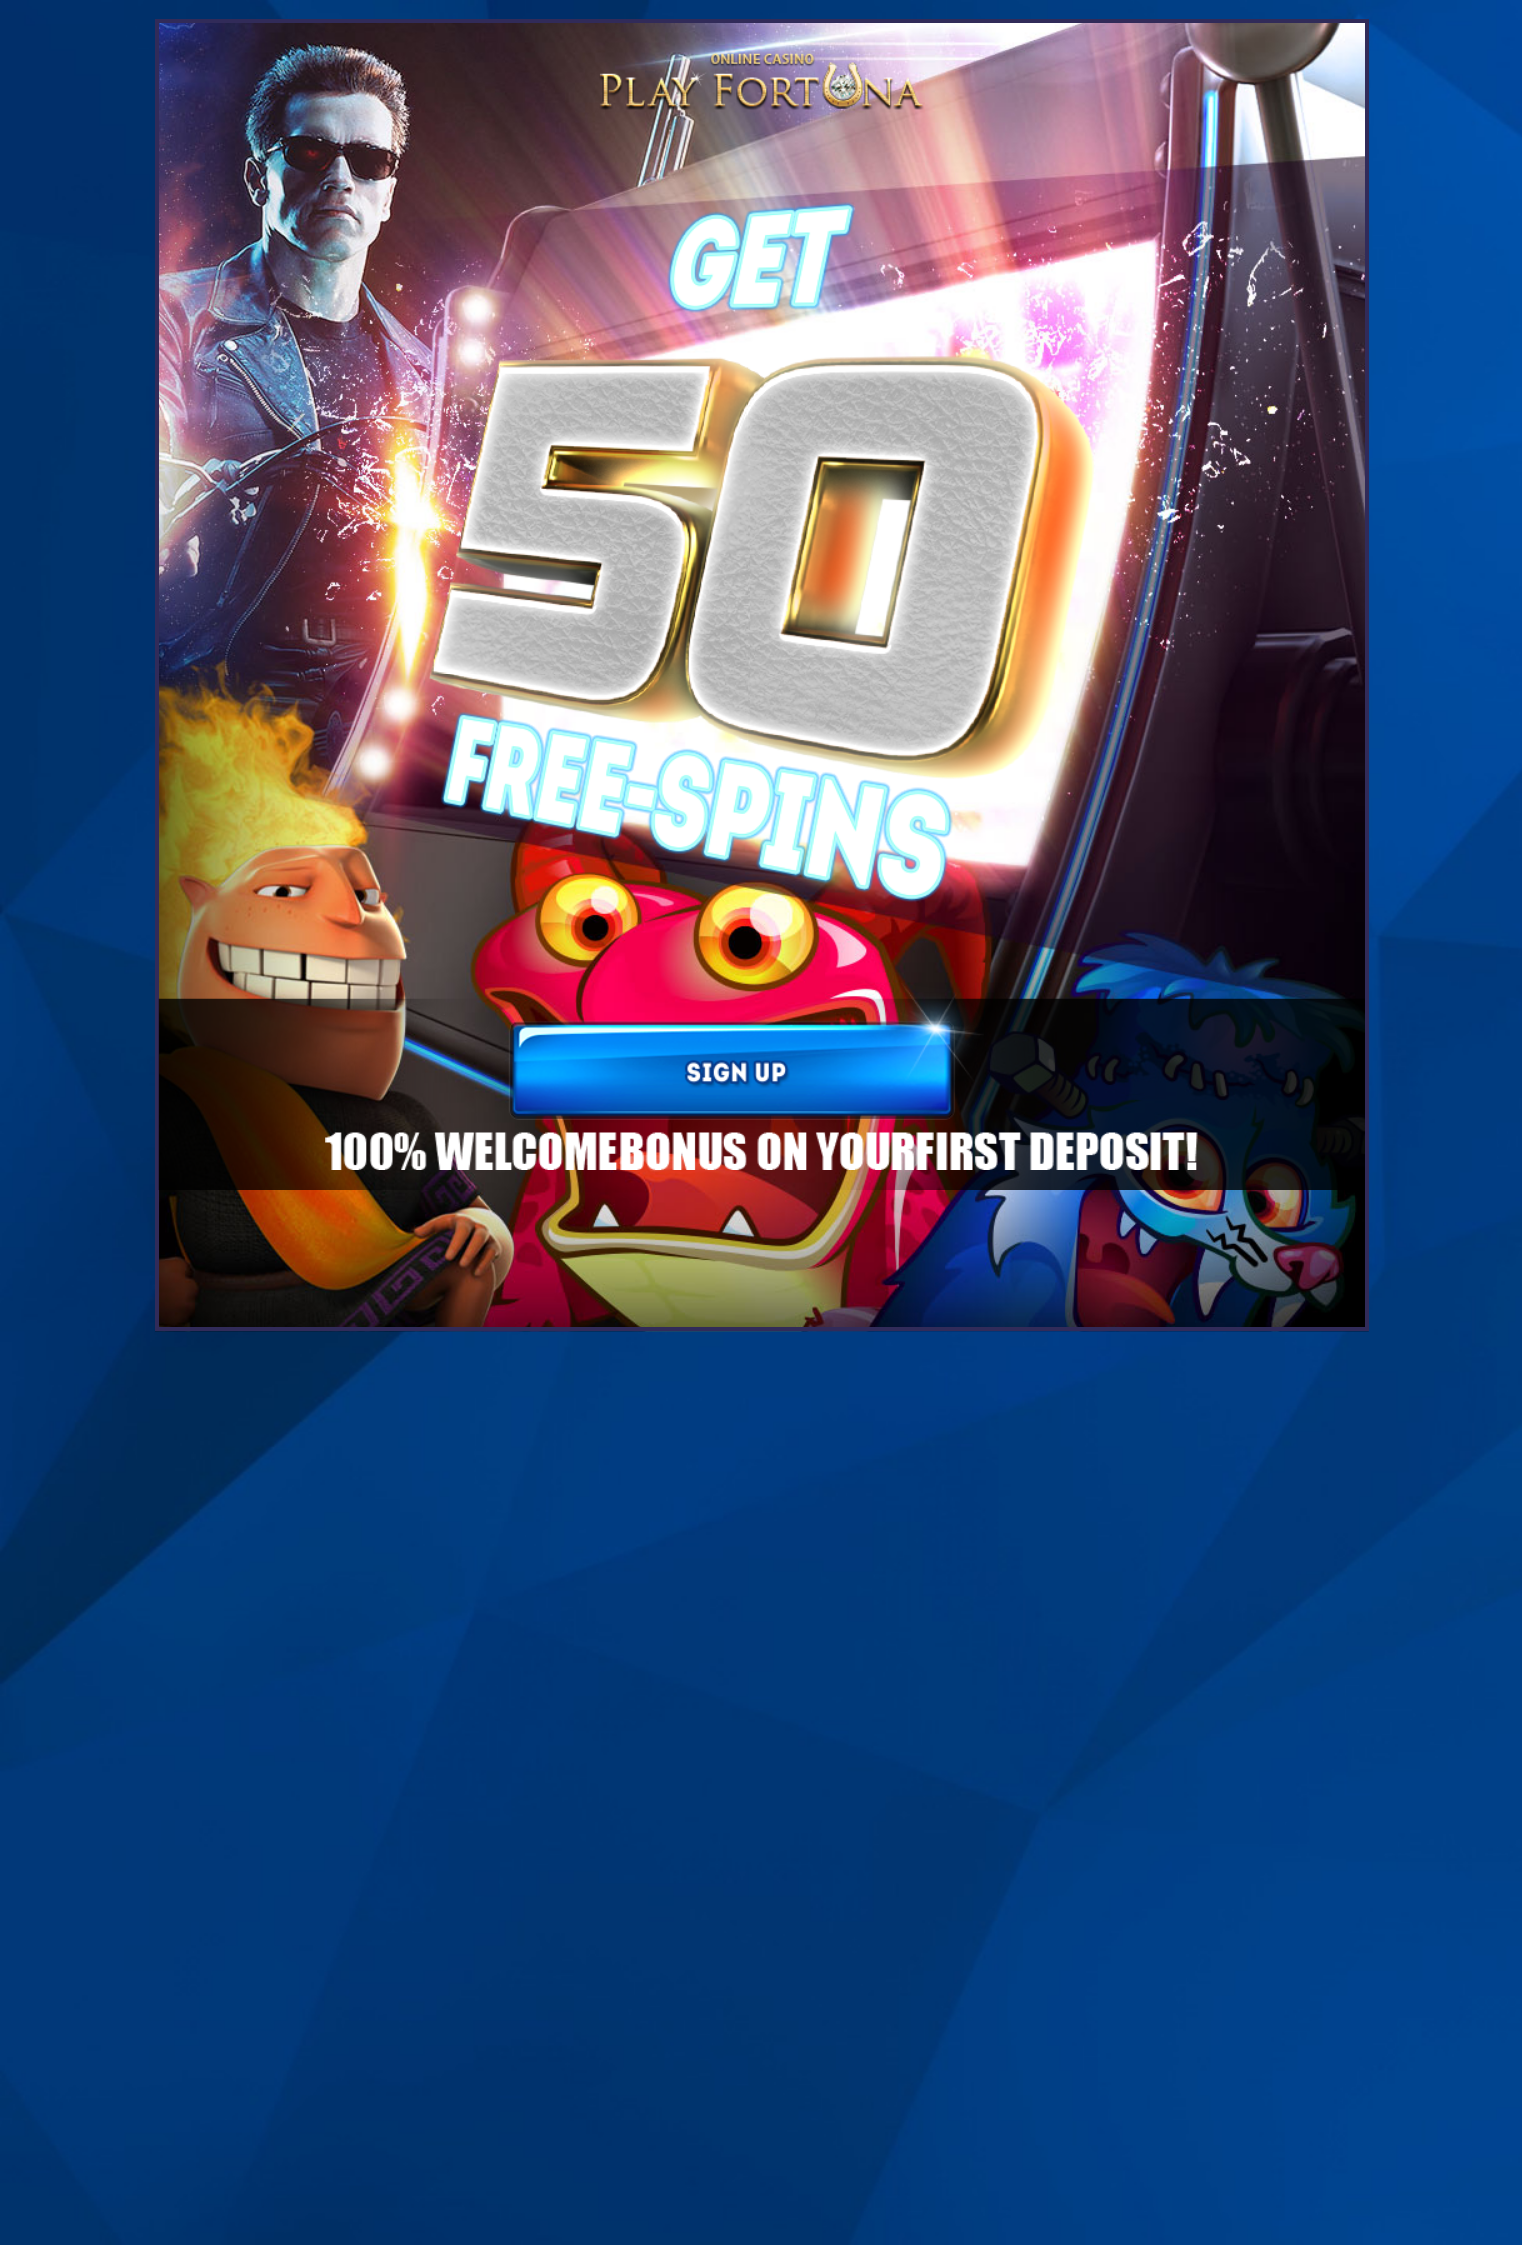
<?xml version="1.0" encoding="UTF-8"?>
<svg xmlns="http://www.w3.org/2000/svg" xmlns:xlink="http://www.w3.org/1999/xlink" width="1522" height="2245">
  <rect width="100%" height="100%" fill="#ffffff" />
  <image x="0" y="0" width="1522" height="2245" xlink:href="image1.png" />
  <image x="155" y="23" width="1214" height="1309" xlink:href="image2.png" />
  <rect x="157" y="21" width="1210" height="1308" fill="none" stroke="#312b59" stroke-width="4" />
  <image x="599" y="53" width="325" height="57" xlink:href="image3.png" />
  <image x="667" y="202" width="189" height="111" xlink:href="image4.png" />
  <image x="429" y="356" width="665" height="423" xlink:href="image5.png" />
  <image x="440" y="712" width="513" height="191" xlink:href="image6.png" />
  <image x="158" y="998" width="1207" height="192" xlink:href="image7.png" />
  <image x="508" y="983" width="476" height="137" xlink:href="image8.png" />
  <image x="684" y="1060" width="106" height="28" xlink:href="image9.png" />
  <image x="325" y="1132" width="293" height="38" xlink:href="image10.png" />
  <image x="620" y="1132" width="294" height="38" xlink:href="image11.png" />
  <image x="916" y="1132" width="282" height="38" xlink:href="image12.png" />
</svg>
